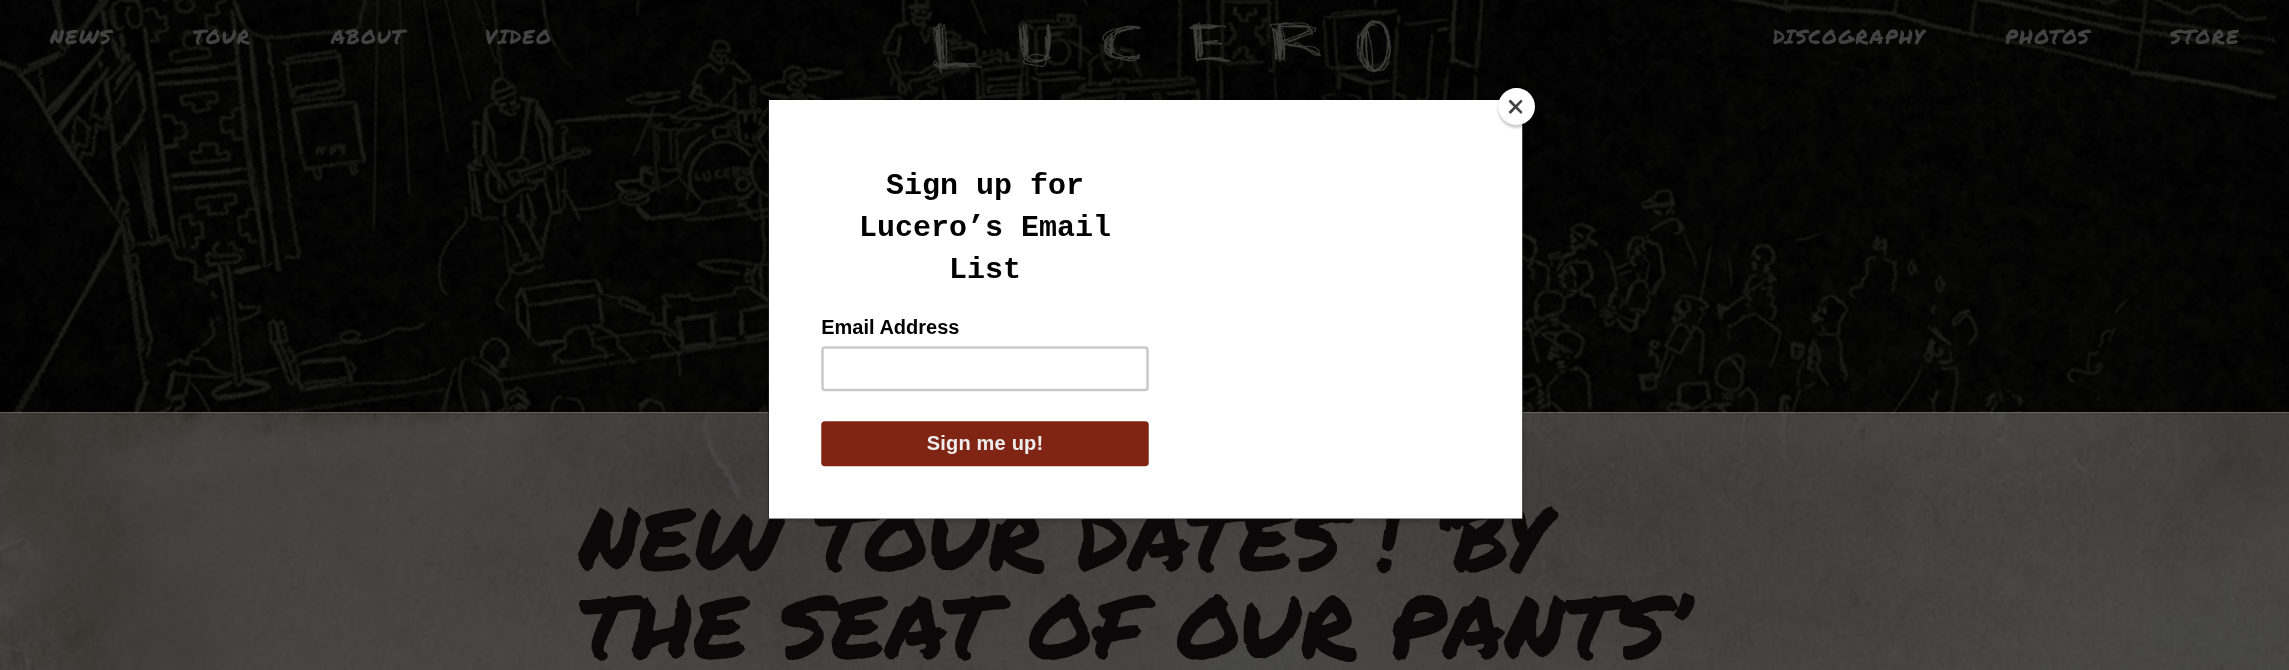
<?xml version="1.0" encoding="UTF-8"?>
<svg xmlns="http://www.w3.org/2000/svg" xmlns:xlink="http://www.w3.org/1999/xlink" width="2289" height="670">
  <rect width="100%" height="100%" fill="#ffffff" />
  <image x="0" y="0" width="2289" height="413" xlink:href="image1.png" />
  <image x="927" y="20" width="470" height="63" xlink:href="image2.png" />
  <image x="0" y="412" width="2289" height="258" xlink:href="image4.png" />
  <rect x="769" y="103" width="754" height="418" fill="#000000" fill-opacity="0.2" filter="blur(2.5px)" />
  <text x="50" y="44" style="font-family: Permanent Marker; font-size: 20px; letter-spacing: 1.25px; fill: #424242">NEWS</text>
  <text x="193" y="44" style="font-family: Permanent Marker; font-size: 20px; letter-spacing: 1.25px; fill: #424242">TOUR</text>
  <text x="331" y="44" style="font-family: Permanent Marker; font-size: 20px; letter-spacing: 1.25px; fill: #424242">ABOUT</text>
  <text x="485" y="44" style="font-family: Permanent Marker; font-size: 20px; letter-spacing: 1.25px; fill: #424242">VIDEO</text>
  <text x="1773" y="44" style="font-family: Permanent Marker; font-size: 20px; letter-spacing: 1.25px; fill: #424242">DISCOGRAPHY</text>
  <text x="2005" y="44" style="font-family: Permanent Marker; font-size: 20px; letter-spacing: 1.25px; fill: #424242">PHOTOS</text>
  <text x="2170" y="44" style="font-family: Permanent Marker; font-size: 20px; letter-spacing: 1.25px; fill: #424242">STORE</text>
  <text x="579" y="571" style="font-family: Permanent Marker; font-size: 87.5px; fill: #0a0808">NEW TOUR DATES ! ‘BY</text>
  <image x="768" y="100" width="755" height="419" xlink:href="image3.png" />
  <rect x="1498" y="90" width="37" height="38" rx="18.5" fill="#000000" fill-opacity="0.2" filter="blur(1px)" />
  <circle cx="1516.5" cy="106.5" r="18.5" fill="#ffffff" />
  <path d="M 1521 99.5 l 1.5 2 l -12 12.5 l -2 -2 z" fill="#414141" />
  <path d="M 1508.5 101.5 l 2 -2 l 12 12.5 l -1.5 2 z" fill="#414141" />
  <text x="579" y="659" style="font-family: Permanent Marker; font-size: 87.5px; fill: #0a0808">THE SEAT OF OUR PANTS’</text>
</svg>
